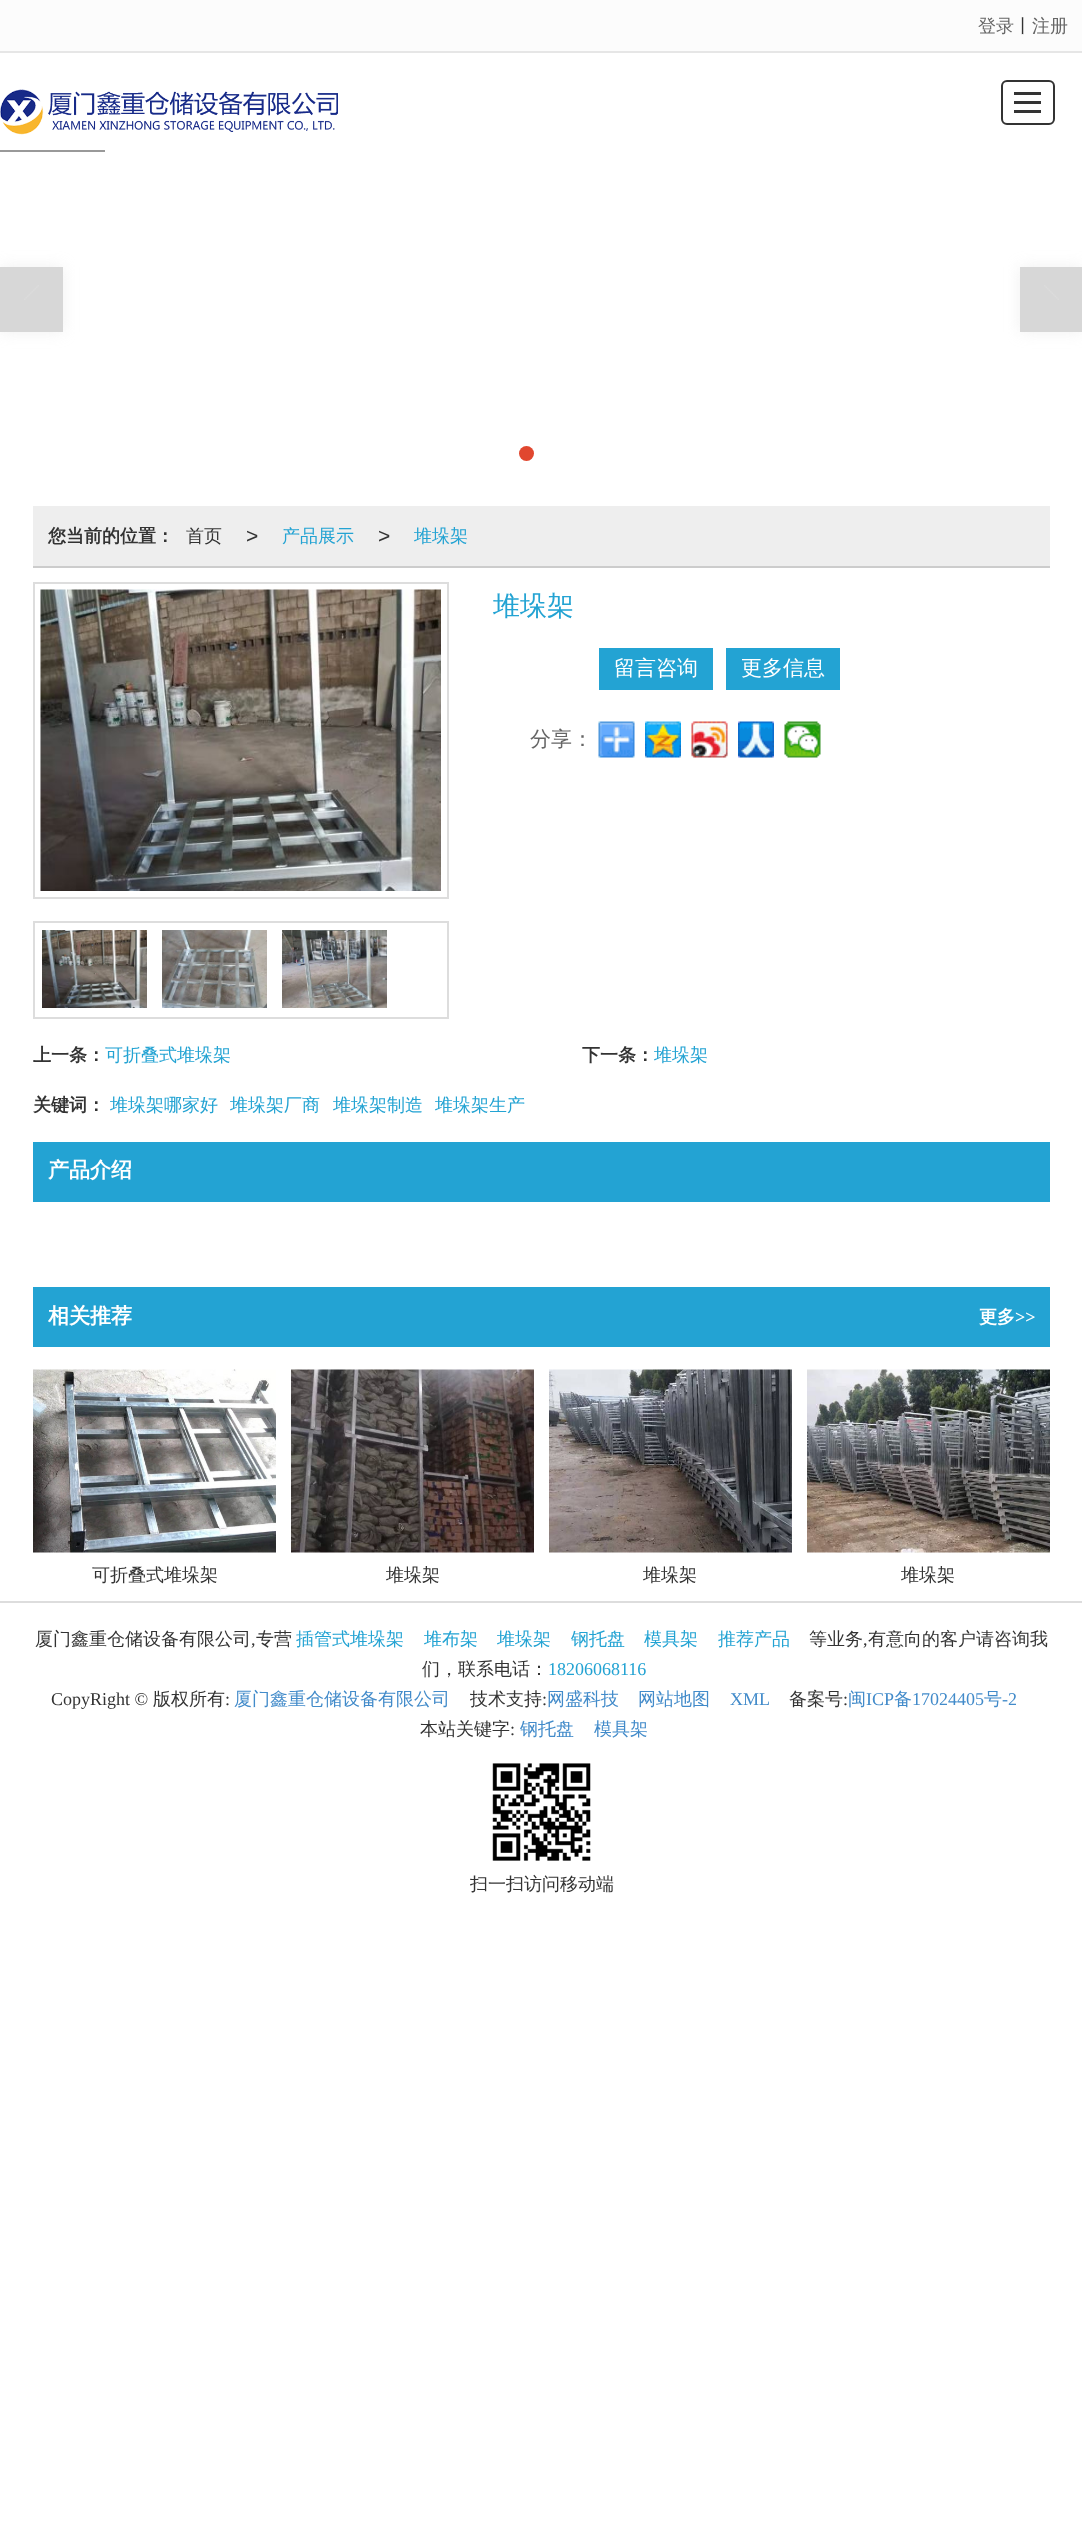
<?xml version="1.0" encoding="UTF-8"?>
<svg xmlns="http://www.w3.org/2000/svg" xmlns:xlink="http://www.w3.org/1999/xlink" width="1082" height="2536">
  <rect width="100%" height="100%" fill="#ffffff" />
  <rect width="1082" height="51" fill="#fcfcfc" />
  <rect y="51" width="1082" height="2" fill="#e6e6e6" />
  <image x="0" y="89" width="338" height="46" xlink:href="image1.png" />
  <rect x="1002" y="81" width="52" height="43" rx="5" fill="none" stroke="#333333" stroke-width="2" />
  <rect x="1014" y="92" width="27" height="3" fill="#333333" />
  <rect x="1014" y="101" width="27" height="3" fill="#333333" />
  <rect x="1014" y="110" width="27" height="3" fill="#333333" />
  <rect y="150" width="105" height="2" fill="#999999" />
  <rect y="267" width="63" height="65" fill="#cccccc" fill-opacity="0.3" filter="blur(7.5px)" />
  <rect y="267" width="63" height="65" fill="#d7d7d7" />
  <image x="24" y="285" width="15" height="15" xlink:href="image2.png" />
  <rect x="1020" y="267" width="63" height="65" fill="#cccccc" fill-opacity="0.3" filter="blur(7.5px)" />
  <rect x="1020" y="267" width="62" height="65" fill="#d7d7d7" />
  <image x="1044" y="285" width="15" height="15" xlink:href="image3.png" />
  <circle cx="526.5" cy="453.5" r="7.5" fill="#e1472f" />
  <rect x="33" y="506" width="1017" height="60" fill="#eeeeee" />
  <rect x="33" y="566" width="1017" height="2" fill="#cccccc" />
  <rect x="34" y="583" width="414" height="315" fill="none" stroke="#dddddd" stroke-width="2" />
  <image x="40" y="589" width="401" height="302" xlink:href="image4.png" />
  <rect x="34" y="922" width="414" height="96" fill="none" stroke="#dddddd" stroke-width="2" />
  <image x="42" y="930" width="105" height="78" xlink:href="image5.png" />
  <image x="162" y="930" width="105" height="78" xlink:href="image6.png" />
  <image x="282" y="930" width="105" height="78" xlink:href="image7.png" />
  <rect x="599" y="648" width="114" height="42" fill="#23a3d3" />
  <rect x="726" y="648" width="114" height="42" fill="#23a3d3" />
  <image x="598" y="721" width="37" height="37" xlink:href="image8.png" />
  <image x="645" y="721" width="36" height="37" xlink:href="image9.png" />
  <image x="691" y="721" width="37" height="37" xlink:href="image10.png" />
  <image x="738" y="721" width="36" height="37" xlink:href="image11.png" />
  <image x="784" y="721" width="37" height="37" xlink:href="image12.png" />
  <rect x="33" y="1142" width="1017" height="60" fill="#23a3d3" />
  <rect x="33" y="1287" width="1017" height="60" fill="#23a3d3" />
  <image x="33" y="1369" width="243" height="184" xlink:href="image13.png" />
  <image x="291" y="1369" width="243" height="184" xlink:href="image14.png" />
  <image x="549" y="1369" width="243" height="184" xlink:href="image15.png" />
  <image x="807" y="1369" width="243" height="184" xlink:href="image16.png" />
  <rect y="1601" width="1082" height="2" fill="#dddddd" />
  <image x="492" y="1763" width="99" height="98" xlink:href="image17.png" />
  <text x="978" y="32" style="font-family: WenQuanYi Zen Hei; font-size: 18px; font-weight: 500; fill: #666666">登录</text>
  <text x="1014" y="32" style="font-family: WenQuanYi Zen Hei; font-size: 18px; font-weight: 500; fill: #333333">丨</text>
  <text x="1032" y="32" style="font-family: WenQuanYi Zen Hei; font-size: 18px; font-weight: 500; fill: #666666">注册</text>
  <text x="48" y="542" style="font-family: WenQuanYi Zen Hei; font-size: 18px; font-weight: bold; fill: #333333">您当前的位置：</text>
  <text x="186" y="542" style="font-family: WenQuanYi Zen Hei; font-size: 18px; font-weight: 500; fill: #333333">首页</text>
  <text x="246" y="543" style="font-family: Liberation Sans; font-size: 21px; fill: #333333">&gt;</text>
  <text x="282" y="542" style="font-family: WenQuanYi Zen Hei; font-size: 18px; font-weight: 500; fill: #23a3d3">产品展示</text>
  <text x="378" y="543" style="font-family: Liberation Sans; font-size: 21px; fill: #333333">&gt;</text>
  <text x="414" y="542" style="font-family: WenQuanYi Zen Hei; font-size: 18px; font-weight: 500; fill: #23a3d3">堆垛架</text>
  <text x="493" y="615" style="font-family: WenQuanYi Zen Hei; font-size: 27px; font-weight: 500; fill: #23a3d3">堆垛架</text>
  <text x="614" y="675" style="font-family: WenQuanYi Zen Hei; font-size: 21px; font-weight: 500; fill: #ffffff">留言咨询</text>
  <text x="741" y="675" style="font-family: WenQuanYi Zen Hei; font-size: 21px; font-weight: 500; fill: #ffffff">更多信息</text>
  <text x="530" y="746" style="font-family: WenQuanYi Zen Hei; font-size: 21px; font-weight: 500; fill: #666666">分享：</text>
  <text x="33" y="1061" style="font-family: WenQuanYi Zen Hei; font-size: 18px; font-weight: bold; fill: #333333">上一条：</text>
  <text x="105" y="1061" style="font-family: WenQuanYi Zen Hei; font-size: 18px; font-weight: 500; fill: #23a3d3">可折叠式堆垛架</text>
  <text x="582" y="1061" style="font-family: WenQuanYi Zen Hei; font-size: 18px; font-weight: bold; fill: #333333">下一条：</text>
  <text x="654" y="1061" style="font-family: WenQuanYi Zen Hei; font-size: 18px; font-weight: 500; fill: #23a3d3">堆垛架</text>
  <text x="33" y="1111" style="font-family: WenQuanYi Zen Hei; font-size: 18px; font-weight: bold; fill: #333333">关键词：</text>
  <text x="110" y="1111" style="font-family: WenQuanYi Zen Hei; font-size: 18px; font-weight: 500; fill: #23a3d3">堆垛架哪家好</text>
  <text x="230" y="1111" style="font-family: WenQuanYi Zen Hei; font-size: 18px; font-weight: 500; fill: #23a3d3">堆垛架厂商</text>
  <text x="333" y="1111" style="font-family: WenQuanYi Zen Hei; font-size: 18px; font-weight: 500; fill: #23a3d3">堆垛架制造</text>
  <text x="435" y="1111" style="font-family: WenQuanYi Zen Hei; font-size: 18px; font-weight: 500; fill: #23a3d3">堆垛架生产</text>
  <text x="48" y="1177" style="font-family: WenQuanYi Zen Hei; font-size: 21px; font-weight: bold; fill: #ffffff">产品介绍</text>
  <text x="48" y="1323" style="font-family: WenQuanYi Zen Hei; font-size: 21px; font-weight: bold; fill: #ffffff">相关推荐</text>
  <text x="979" y="1323" style="font-family: WenQuanYi Zen Hei; font-size: 18px; font-weight: bold; fill: #ffffff">更多</text>
  <text x="1015" y="1323" style="font-family: Liberation Serif; font-size: 18px; font-weight: bold; fill: #ffffff">&gt;&gt;</text>
  <text x="92" y="1581" style="font-family: WenQuanYi Zen Hei; font-size: 18px; font-weight: 500; fill: #333333">可折叠式堆垛架</text>
  <text x="386" y="1581" style="font-family: WenQuanYi Zen Hei; font-size: 18px; font-weight: 500; fill: #333333">堆垛架</text>
  <text x="643" y="1581" style="font-family: WenQuanYi Zen Hei; font-size: 18px; font-weight: 500; fill: #333333">堆垛架</text>
  <text x="901" y="1581" style="font-family: WenQuanYi Zen Hei; font-size: 18px; font-weight: 500; fill: #333333">堆垛架</text>
  <text x="35" y="1645" style="font-family: WenQuanYi Zen Hei; font-size: 18px; font-weight: 500; fill: #333333">厦门鑫重仓储设备有限公司</text>
  <text x="251" y="1645" style="font-family: Liberation Serif; font-size: 18px; fill: #333333">,</text>
  <text x="256" y="1645" style="font-family: WenQuanYi Zen Hei; font-size: 18px; font-weight: 500; fill: #333333">专营</text>
  <text x="296" y="1645" style="font-family: WenQuanYi Zen Hei; font-size: 18px; font-weight: 500; fill: #23a3d3">插管式堆垛架</text>
  <text x="424" y="1645" style="font-family: WenQuanYi Zen Hei; font-size: 18px; font-weight: 500; fill: #23a3d3">堆布架</text>
  <text x="497" y="1645" style="font-family: WenQuanYi Zen Hei; font-size: 18px; font-weight: 500; fill: #23a3d3">堆垛架</text>
  <text x="571" y="1645" style="font-family: WenQuanYi Zen Hei; font-size: 18px; font-weight: 500; fill: #23a3d3">钢托盘</text>
  <text x="644" y="1645" style="font-family: WenQuanYi Zen Hei; font-size: 18px; font-weight: 500; fill: #23a3d3">模具架</text>
  <text x="718" y="1645" style="font-family: WenQuanYi Zen Hei; font-size: 18px; font-weight: 500; fill: #23a3d3">推荐产品</text>
  <text x="809" y="1645" style="font-family: WenQuanYi Zen Hei; font-size: 18px; font-weight: 500; fill: #333333">等业务</text>
  <text x="863" y="1645" style="font-family: Liberation Serif; font-size: 18px; fill: #333333">,</text>
  <text x="868" y="1645" style="font-family: WenQuanYi Zen Hei; font-size: 18px; font-weight: 500; fill: #333333">有意向的客户请咨询我</text>
  <text x="422" y="1675" style="font-family: WenQuanYi Zen Hei; font-size: 18px; font-weight: 500; fill: #333333">们，联系电话：</text>
  <text x="548" y="1675" style="font-family: Liberation Serif; font-size: 18px; fill: #23a3d3">18206068116</text>
  <text x="51" y="1705" style="font-family: Liberation Serif; font-size: 18px; fill: #333333">CopyRight ©</text>
  <text x="153" y="1705" style="font-family: WenQuanYi Zen Hei; font-size: 18px; font-weight: 500; fill: #333333">版权所有</text>
  <text x="225" y="1705" style="font-family: Liberation Serif; font-size: 18px; fill: #333333">:</text>
  <text x="234" y="1705" style="font-family: WenQuanYi Zen Hei; font-size: 18px; font-weight: 500; fill: #428bca">厦门鑫重仓储设备有限公司</text>
  <text x="470" y="1705" style="font-family: WenQuanYi Zen Hei; font-size: 18px; font-weight: 500; fill: #333333">技术支持</text>
  <text x="542" y="1705" style="font-family: Liberation Serif; font-size: 18px; fill: #333333">:</text>
  <text x="547" y="1705" style="font-family: WenQuanYi Zen Hei; font-size: 18px; font-weight: 500; fill: #428bca">网盛科技</text>
  <text x="638" y="1705" style="font-family: WenQuanYi Zen Hei; font-size: 18px; font-weight: 500; fill: #428bca">网站地图</text>
  <text x="730" y="1705" style="font-family: Liberation Serif; font-size: 18px; fill: #428bca">XML</text>
  <text x="789" y="1705" style="font-family: WenQuanYi Zen Hei; font-size: 18px; font-weight: 500; fill: #333333">备案号</text>
  <text x="843" y="1705" style="font-family: Liberation Serif; font-size: 18px; fill: #333333">:</text>
  <text x="848" y="1705" style="font-family: WenQuanYi Zen Hei; font-size: 18px; font-weight: 500; fill: #428bca">闽</text>
  <text x="866" y="1705" style="font-family: Liberation Serif; font-size: 18px; fill: #428bca">ICP</text>
  <text x="894" y="1705" style="font-family: WenQuanYi Zen Hei; font-size: 18px; font-weight: 500; fill: #428bca">备</text>
  <text x="912" y="1705" style="font-family: Liberation Serif; font-size: 18px; fill: #428bca">17024405</text>
  <text x="984" y="1705" style="font-family: WenQuanYi Zen Hei; font-size: 18px; font-weight: 500; fill: #428bca">号</text>
  <text x="1002" y="1705" style="font-family: Liberation Serif; font-size: 18px; fill: #428bca">-2</text>
  <text x="420" y="1735" style="font-family: WenQuanYi Zen Hei; font-size: 18px; font-weight: 500; fill: #333333">本站关键字</text>
  <text x="510" y="1735" style="font-family: Liberation Serif; font-size: 18px; fill: #333333">:</text>
  <text x="520" y="1735" style="font-family: WenQuanYi Zen Hei; font-size: 18px; font-weight: 500; fill: #428bca">钢托盘</text>
  <text x="594" y="1735" style="font-family: WenQuanYi Zen Hei; font-size: 18px; font-weight: 500; fill: #428bca">模具架</text>
  <text x="470" y="1890" style="font-family: WenQuanYi Zen Hei; font-size: 18px; font-weight: 500; fill: #333333">扫一扫访问移动端</text>
</svg>
